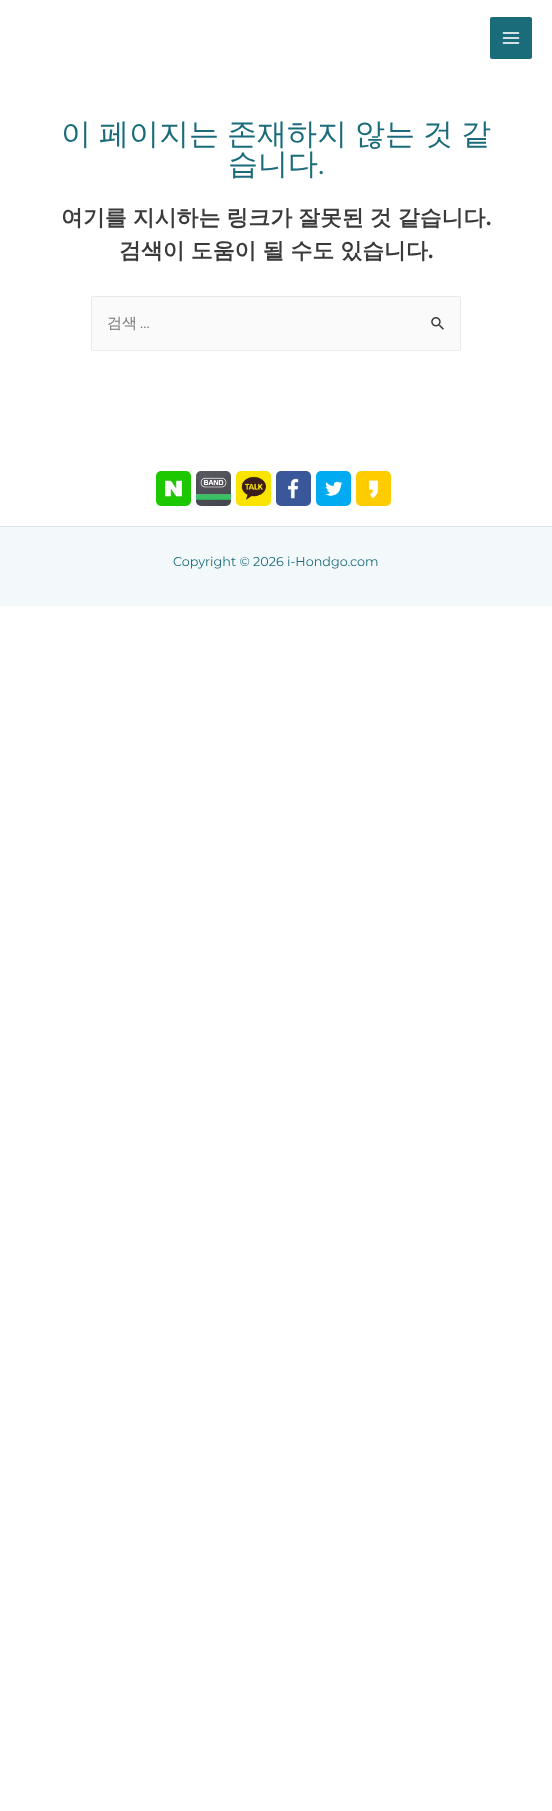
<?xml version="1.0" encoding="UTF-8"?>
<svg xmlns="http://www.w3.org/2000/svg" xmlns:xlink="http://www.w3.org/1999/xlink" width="552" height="1811">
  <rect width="100%" height="100%" fill="#ffffff" />
  <rect x="490" y="17" width="42" height="42" rx="2" fill="#1a6c7a" />
  <image x="502" y="32" width="18" height="12" xlink:href="image1.png" />
  <rect x="91.5" y="296.5" width="369" height="54" rx="1.5" fill="#fafafa" stroke="#eaeaea" />
  <image x="431" y="317" width="13" height="13" xlink:href="image2.png" />
  <image x="156" y="471" width="35" height="35" xlink:href="image3.png" />
  <image x="196" y="471" width="35" height="35" xlink:href="image4.png" />
  <image x="236" y="471" width="35" height="35" xlink:href="image5.png" />
  <image x="276" y="471" width="35" height="35" xlink:href="image6.png" />
  <image x="316" y="471" width="35" height="35" xlink:href="image7.png" />
  <image x="356" y="471" width="35" height="35" xlink:href="image8.png" />
  <rect y="527" width="552" height="79" fill="#f3f9fb" />
  <rect y="526" width="552" height="1" fill="#dbe8eb" />
  <text x="61" y="144" word-spacing="-1" style="font-family: WenQuanYi Zen Hei; font-size: 30px; font-weight: 500; fill: #1a6c7a">이 페이지는 존재하지 않는 것 같</text>
  <text x="228" y="174" style="font-family: WenQuanYi Zen Hei; font-size: 30px; font-weight: 500; fill: #1a6c7a">습니다</text>
  <text x="318" y="174" style="font-family: Montserrat; font-size: 30px; fill: #1a6c7a">.</text>
  <text x="61" y="225" word-spacing="-0.5" style="font-family: WenQuanYi Zen Hei; font-size: 21.9px; font-weight: bold; fill: #3a3a3a">여기를 지시하는 링크가 잘못된 것 같습니다</text>
  <text x="486" y="225" style="font-family: Montserrat; font-size: 21.9px; font-weight: 600; fill: #3a3a3a">.</text>
  <text x="119" y="258" word-spacing="-0.5" style="font-family: WenQuanYi Zen Hei; font-size: 21.9px; font-weight: bold; fill: #3a3a3a">검색이 도움이 될 수도 있습니다</text>
  <text x="428" y="258" style="font-family: Montserrat; font-size: 21.9px; font-weight: 600; fill: #3a3a3a">.</text>
  <text x="107" y="328" style="font-family: WenQuanYi Zen Hei; font-size: 15px; font-weight: 500; fill: #757575">검색</text>
  <text x="140" y="328" style="font-family: Montserrat; font-size: 15px; fill: #757575">…</text>
  <text x="173" y="566" style="font-family: Montserrat; font-size: 12.75px; fill: #1a6c7a">Copyright © 2026 i-Hondgo.com</text>
</svg>
